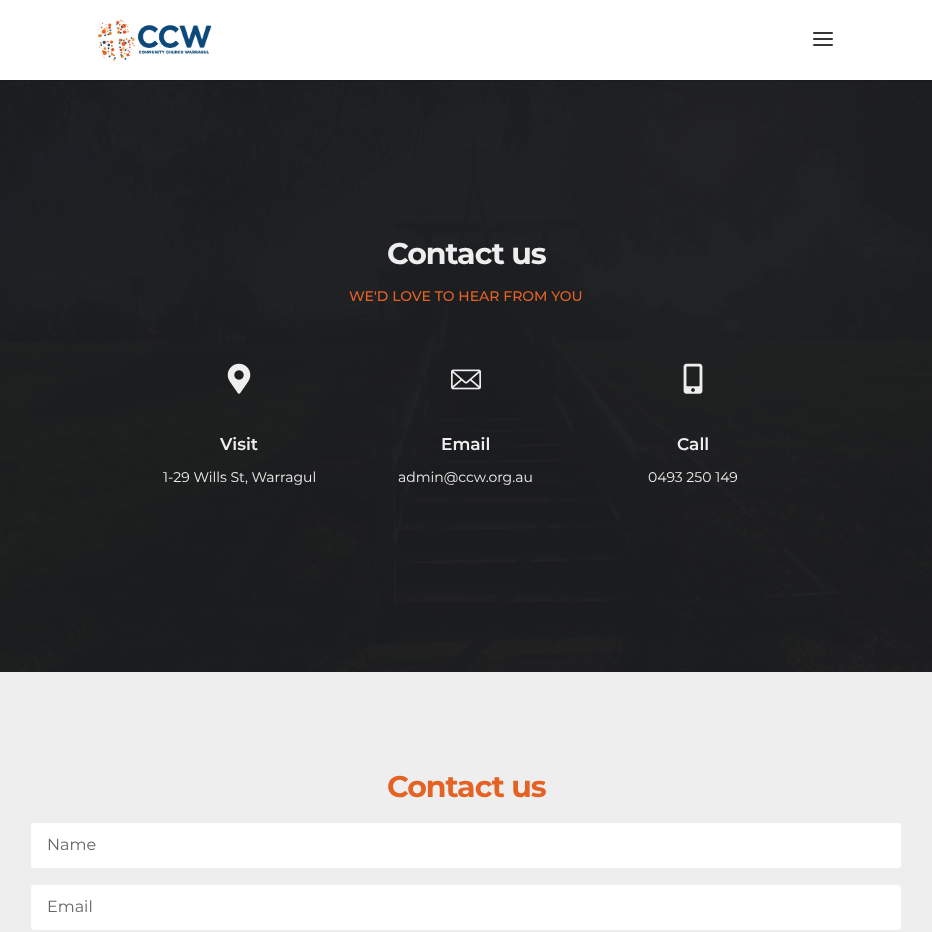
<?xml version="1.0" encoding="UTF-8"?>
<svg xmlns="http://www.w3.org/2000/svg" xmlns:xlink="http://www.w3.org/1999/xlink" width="932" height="932">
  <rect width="100%" height="100%" fill="#ffffff" />
  <image x="0" y="80" width="932" height="592" xlink:href="image3.png" />
  <rect y="80" width="932" height="1" fill="#000000" fill-opacity="0.1" />
  <image x="97" y="19" width="115" height="42" xlink:href="image1.png" />
  <image x="813" y="32" width="20" height="14" xlink:href="image2.png" />
  <image x="227" y="363" width="24" height="31" xlink:href="image4.png" />
  <image x="451" y="369" width="30" height="21" xlink:href="image5.png" />
  <image x="683" y="363" width="20" height="31" xlink:href="image6.png" />
  <rect y="672" width="932" height="260" fill="#eeeeee" />
  <rect x="30.5" y="822.5" width="871" height="46" rx="3.5" fill="#ffffff" stroke="#eeeeee" />
  <rect x="30.5" y="884.5" width="871" height="46" rx="3.5" fill="#ffffff" stroke="#eeeeee" />
  <text x="387" y="264" style="font-family: Montserrat; font-size: 30px; font-weight: bold; letter-spacing: -1px; fill: #eeeeee">Contact us</text>
  <text x="349" y="301" style="font-family: Montserrat; font-size: 14px; font-weight: 500; fill: #e56225">WE'D LOVE TO HEAR FROM YOU</text>
  <text x="220" y="450" style="font-family: Montserrat; font-size: 17px; font-weight: 600; fill: #eeeeee">Visit</text>
  <text x="163" y="482" style="font-family: Montserrat; font-size: 14px; fill: #eeeeee">1-29 Wills St, Warragul</text>
  <text x="441" y="450" style="font-family: Montserrat; font-size: 17px; font-weight: 600; fill: #eeeeee">Email</text>
  <text x="398" y="482" style="font-family: Montserrat; font-size: 14px; fill: #eeeeee">admin@ccw.org.au</text>
  <text x="677" y="450" style="font-family: Montserrat; font-size: 17px; font-weight: 600; fill: #eeeeee">Call</text>
  <text x="648" y="482" style="font-family: Montserrat; font-size: 14px; fill: #eeeeee">0493 250 149</text>
  <text x="387" y="797" style="font-family: Montserrat; font-size: 30px; font-weight: bold; letter-spacing: -1px; fill: #e56225">Contact us</text>
  <text x="47" y="850" style="font-family: Montserrat; font-size: 16px; fill: #666666">Name</text>
  <text x="47" y="912" style="font-family: Montserrat; font-size: 16px; fill: #666666">Email</text>
</svg>
